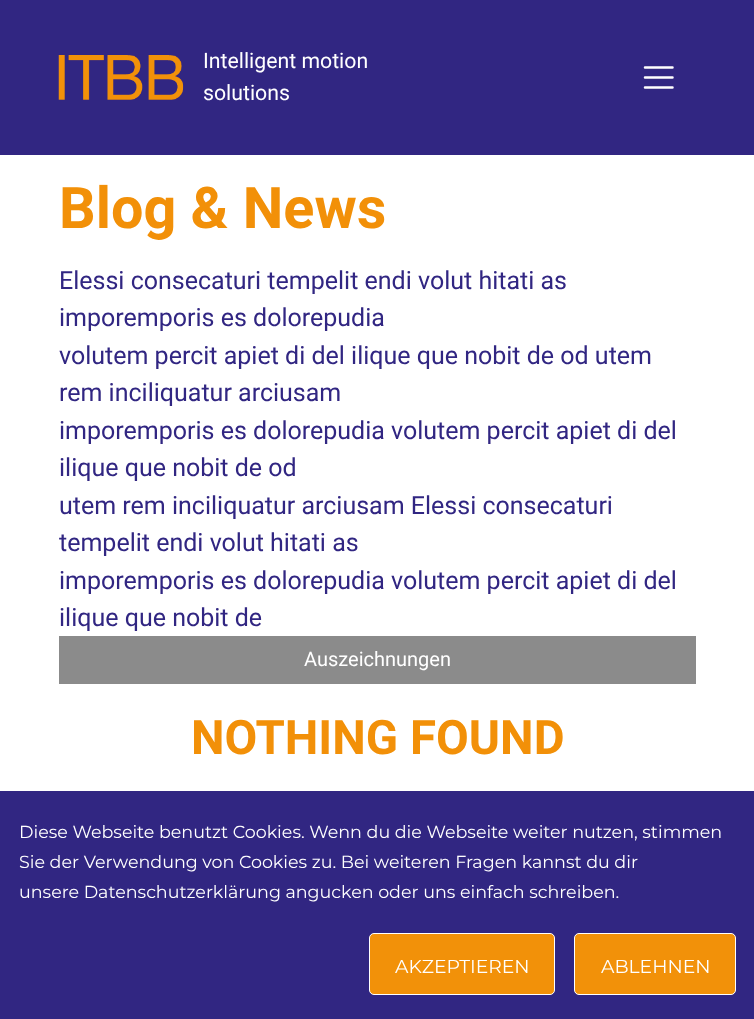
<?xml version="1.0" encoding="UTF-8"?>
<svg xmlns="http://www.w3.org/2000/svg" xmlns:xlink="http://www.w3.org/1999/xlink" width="754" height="1019">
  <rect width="100%" height="100%" fill="#ffffff" />
  <rect width="754" height="155" fill="#312682" />
  <image x="58" y="55" width="126" height="45" xlink:href="image1.png" />
  <path d="M 645 67.5 h 27.5 m -27.5 10 h 27.5 m -27.5 10 h 27.5" fill="none" stroke="#ffffff" stroke-width="2.5" stroke-linecap="round" />
  <rect x="59" y="636" width="637" height="48" fill="#8b8b8b" />
  <rect y="791" width="754" height="228" fill="#312682" />
  <rect x="369.5" y="933.5" width="185" height="61" rx="4.5" fill="#f29109" stroke="#ffffff" />
  <rect x="574.5" y="933.5" width="161" height="61" rx="4.5" fill="#f29109" stroke="#ffffff" />
  <text x="203" y="68" style="font-family: Roboto; font-size: 21.25px; fill: #ffffff">Intelligent motion</text>
  <text x="203" y="100" style="font-family: Roboto; font-size: 21.25px; fill: #ffffff">solutions</text>
  <text x="59" y="228" style="font-family: Roboto; font-size: 57.5px; font-weight: bold; fill: #f29008">Blog &amp; News</text>
  <text x="59" y="289" style="font-family: Roboto; font-size: 25px; fill: #312682">Elessi consecaturi tempelit endi volut hitati as</text>
  <text x="59" y="326" style="font-family: Roboto; font-size: 25px; fill: #312682">imporemporis es dolorepudia</text>
  <text x="59" y="364" style="font-family: Roboto; font-size: 25px; fill: #312682">volutem percit apiet di del ilique que nobit de od utem</text>
  <text x="59" y="401" style="font-family: Roboto; font-size: 25px; fill: #312682">rem inciliquatur arciusam</text>
  <text x="59" y="439" style="font-family: Roboto; font-size: 25px; fill: #312682">imporemporis es dolorepudia volutem percit apiet di del</text>
  <text x="59" y="476" style="font-family: Roboto; font-size: 25px; fill: #312682">ilique que nobit de od</text>
  <text x="59" y="514" style="font-family: Roboto; font-size: 25px; fill: #312682">utem rem inciliquatur arciusam Elessi consecaturi</text>
  <text x="59" y="551" style="font-family: Roboto; font-size: 25px; fill: #312682">tempelit endi volut hitati as</text>
  <text x="59" y="589" style="font-family: Roboto; font-size: 25px; fill: #312682">imporemporis es dolorepudia volutem percit apiet di del</text>
  <text x="59" y="626" style="font-family: Roboto; font-size: 25px; fill: #312682">ilique que nobit de</text>
  <text x="304" y="666" style="font-family: Roboto; font-size: 20px; fill: #ffffff">Auszeichnungen</text>
  <text x="191" y="754" style="font-family: Roboto; font-size: 47.5px; font-weight: bold; fill: #f29008">NOTHING FOUND</text>
  <text x="19" y="838" style="font-family: Montserrat; font-size: 17.5px; fill: #ffffff">Diese Webseite benutzt Cookies. Wenn du die Webseite weiter nutzen, stimmen</text>
  <text x="19" y="868" style="font-family: Montserrat; font-size: 17.5px; fill: #ffffff">Sie der Verwendung von Cookies zu. Bei weiteren Fragen kannst du dir</text>
  <text x="19" y="898" style="font-family: Montserrat; font-size: 17.5px; fill: #ffffff">unsere Datenschutzerklärung angucken oder uns einfach schreiben.</text>
  <text x="395" y="973" style="font-family: Montserrat; font-size: 18.75px; fill: #ffffff">AKZEPTIEREN</text>
  <text x="601" y="973" style="font-family: Montserrat; font-size: 18.75px; fill: #ffffff">ABLEHNEN</text>
</svg>
